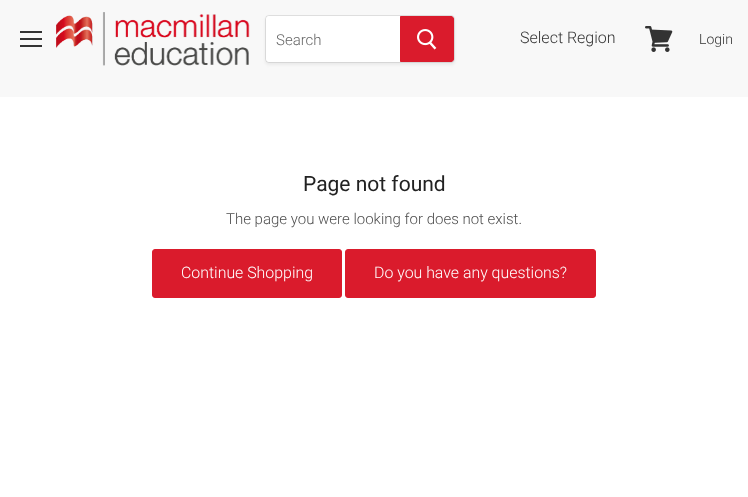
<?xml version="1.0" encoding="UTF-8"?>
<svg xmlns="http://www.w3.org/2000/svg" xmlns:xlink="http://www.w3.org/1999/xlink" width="748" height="497">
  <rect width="100%" height="100%" fill="#ffffff" />
  <rect width="748" height="97" fill="#f8f8f8" />
  <rect x="20" y="31" width="22" height="2" fill="#333333" />
  <rect x="20" y="38" width="22" height="2" fill="#333333" />
  <rect x="20" y="45" width="22" height="2" fill="#333333" />
  <image x="56" y="12" width="194" height="54" xlink:href="image1.png" />
  <rect x="265" y="17" width="190" height="48" rx="4" fill="#808080" fill-opacity="0.11" filter="blur(1.5px)" />
  <rect x="265.5" y="15.5" width="189" height="47" rx="3.5" fill="none" stroke="#808080" stroke-opacity="0.2" />
  <path d="M 269 16 h 131 v 46 h -131 c -1.5 0 -3 -1.5 -3 -3 v -40 c 0 -1.5 1.5 -3 3 -3 z" fill="#ffffff" />
  <path d="M 400.5 16.5 h 50.5 c 1.5 0 2.5 1 2.5 2.5 v 40 c 0 1.5 -1 2.5 -2.5 2.5 h -50.5 z" fill="#da1b2c" stroke="#da1b2c" />
  <image x="417" y="29" width="20" height="21" xlink:href="image2.png" />
  <image x="645" y="26" width="28" height="26" xlink:href="image3.png" />
  <rect x="152.5" y="249.5" width="189" height="48" rx="2.5" fill="#da1b2c" stroke="#da1b2c" />
  <rect x="345.5" y="249.5" width="250" height="48" rx="2.5" fill="#da1b2c" stroke="#da1b2c" />
  <text x="276" y="45" style="font-family: Roboto; font-size: 15px; font-weight: 300; fill: #666666">Search</text>
  <text x="520" y="43" style="font-family: Roboto; font-size: 16px; font-weight: 300; fill: #333333">Select Region</text>
  <text x="699" y="44" style="font-family: Roboto; font-size: 14px; font-weight: 300; fill: #333333">Login</text>
  <text x="303" y="191" style="font-family: Roboto; font-size: 21px; fill: #222222">Page not found</text>
  <text x="226" y="224" style="font-family: Roboto; font-size: 15px; font-weight: 300; fill: #4e4e4e">The page you were looking for does not exist.</text>
  <text x="181" y="278" style="font-family: Roboto; font-size: 15.9px; font-weight: 300; fill: #ffffff">Continue Shopping</text>
  <text x="374" y="278" style="font-family: Roboto; font-size: 15.9px; font-weight: 300; fill: #ffffff">Do you have any questions?</text>
</svg>
